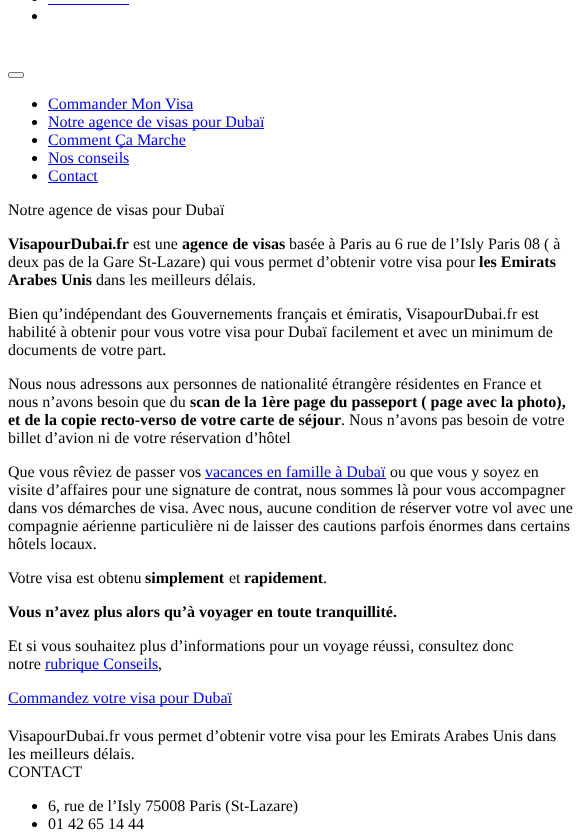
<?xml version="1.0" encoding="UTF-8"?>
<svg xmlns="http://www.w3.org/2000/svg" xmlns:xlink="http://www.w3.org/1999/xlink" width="582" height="836">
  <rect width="100%" height="100%" fill="#ffffff" />
  <rect x="32" y="-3" width="5" height="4" rx="2.5" fill="#000000" />
  <rect x="48" y="4" width="81" height="1" fill="#0000ee" />
  <circle cx="34.5" cy="16.5" r="2.5" fill="#000000" />
  <rect x="8.5" y="72.5" width="15" height="5" rx="1.5" fill="#efefef" stroke="#767676" />
  <circle cx="34.5" cy="104.5" r="2.5" fill="#000000" />
  <rect x="48" y="110" width="145" height="1" fill="#0000ee" />
  <circle cx="34.5" cy="122.5" r="2.5" fill="#000000" />
  <rect x="48" y="128" width="216" height="1" fill="#0000ee" />
  <circle cx="34.5" cy="140.5" r="2.5" fill="#000000" />
  <rect x="48" y="146" width="138" height="1" fill="#0000ee" />
  <circle cx="34.5" cy="158.5" r="2.5" fill="#000000" />
  <rect x="48" y="164" width="81" height="1" fill="#0000ee" />
  <circle cx="34.5" cy="176.5" r="2.5" fill="#000000" />
  <rect x="48" y="182" width="50" height="1" fill="#0000ee" />
  <rect x="205" y="478" width="181" height="1" fill="#0000ee" />
  <rect x="45" y="670" width="113" height="1" fill="#0000ee" />
  <rect x="8" y="704" width="224" height="1" fill="#0000ee" />
  <circle cx="34.5" cy="806.5" r="2.5" fill="#000000" />
  <circle cx="34.5" cy="824.5" r="2.5" fill="#000000" />
  <text x="48" y="109" style="font-family: Liberation Serif; font-size: 16px; fill: #0000ee">Commander Mon Visa</text>
  <text x="48" y="127" style="font-family: Liberation Serif; font-size: 16px; fill: #0000ee">Notre agence de visas pour Dubaï</text>
  <text x="48" y="145" style="font-family: Liberation Serif; font-size: 16px; fill: #0000ee">Comment Ça Marche</text>
  <text x="48" y="163" style="font-family: Liberation Serif; font-size: 16px; fill: #0000ee">Nos conseils</text>
  <text x="48" y="181" style="font-family: Liberation Serif; font-size: 16px; fill: #0000ee">Contact</text>
  <text x="8" y="215" style="font-family: Liberation Serif; font-size: 16px; fill: #000000">Notre agence de visas pour Dubaï</text>
  <text x="8" y="249" style="font-family: Liberation Serif; font-size: 16px; font-weight: bold; fill: #000000">VisapourDubai.fr</text>
  <text x="133" y="249" style="font-family: Liberation Serif; font-size: 16px; fill: #000000">est une</text>
  <text x="182" y="249" style="font-family: Liberation Serif; font-size: 16px; font-weight: bold; fill: #000000">agence de visas</text>
  <text x="289" y="249" style="font-family: Liberation Serif; font-size: 16px; fill: #000000">basée à Paris au 6 rue de l’Isly Paris 08 ( à</text>
  <text x="8" y="267" style="font-family: Liberation Serif; font-size: 16px; fill: #000000">deux pas de la Gare St-Lazare) qui vous permet d’obtenir votre visa pour</text>
  <text x="479" y="267" style="font-family: Liberation Serif; font-size: 16px; font-weight: bold; fill: #000000">les Emirats</text>
  <text x="8" y="285" style="font-family: Liberation Serif; font-size: 16px; font-weight: bold; fill: #000000">Arabes Unis</text>
  <text x="96" y="285" style="font-family: Liberation Serif; font-size: 16px; fill: #000000">dans les meilleurs délais.</text>
  <text x="8" y="319" style="font-family: Liberation Serif; font-size: 16px; fill: #000000">Bien qu’indépendant des Gouvernements français et émiratis, VisapourDubai.fr est</text>
  <text x="8" y="337" style="font-family: Liberation Serif; font-size: 16px; fill: #000000">habilité à obtenir pour vous votre visa pour Dubaï facilement et avec un minimum de</text>
  <text x="8" y="355" style="font-family: Liberation Serif; font-size: 16px; fill: #000000">documents de votre part.</text>
  <text x="8" y="389" style="font-family: Liberation Serif; font-size: 16px; fill: #000000">Nous nous adressons aux personnes de nationalité étrangère résidentes en France et</text>
  <text x="8" y="407" style="font-family: Liberation Serif; font-size: 16px; fill: #000000">nous n’avons besoin que du</text>
  <text x="190" y="407" style="font-family: Liberation Serif; font-size: 16px; font-weight: bold; fill: #000000">scan de la 1ère page du passeport ( page avec la photo),</text>
  <text x="8" y="425" style="font-family: Liberation Serif; font-size: 16px; font-weight: bold; fill: #000000">et de la copie recto-verso de votre carte de séjour</text>
  <text x="341" y="425" style="font-family: Liberation Serif; font-size: 16px; fill: #000000">. Nous n’avons pas besoin de votre</text>
  <text x="8" y="443" style="font-family: Liberation Serif; font-size: 16px; fill: #000000">billet d’avion ni de votre réservation d’hôtel</text>
  <text x="8" y="477" style="font-family: Liberation Serif; font-size: 16px; fill: #000000">Que vous rêviez de passer vos</text>
  <text x="205" y="477" style="font-family: Liberation Serif; font-size: 16px; fill: #0000ee">vacances en famille à Dubaï</text>
  <text x="390" y="477" style="font-family: Liberation Serif; font-size: 16px; fill: #000000">ou que vous y soyez en</text>
  <text x="8" y="495" style="font-family: Liberation Serif; font-size: 16px; fill: #000000">visite d’affaires pour une signature de contrat, nous sommes là pour vous accompagner</text>
  <text x="8" y="513" style="font-family: Liberation Serif; font-size: 16px; fill: #000000">dans vos démarches de visa. Avec nous, aucune condition de réserver votre vol avec une</text>
  <text x="8" y="531" style="font-family: Liberation Serif; font-size: 16px; fill: #000000">compagnie aérienne particulière ni de laisser des cautions parfois énormes dans certains</text>
  <text x="8" y="549" style="font-family: Liberation Serif; font-size: 16px; fill: #000000">hôtels locaux.</text>
  <text x="8" y="583" style="font-family: Liberation Serif; font-size: 16px; fill: #000000">Votre visa est obtenu</text>
  <text x="145" y="583" style="font-family: Liberation Serif; font-size: 16px; font-weight: bold; fill: #000000">simplement</text>
  <text x="229" y="583" style="font-family: Liberation Serif; font-size: 16px; fill: #000000">et</text>
  <text x="244" y="583" style="font-family: Liberation Serif; font-size: 16px; font-weight: bold; fill: #000000">rapidement</text>
  <text x="323" y="583" style="font-family: Liberation Serif; font-size: 16px; fill: #000000">.</text>
  <text x="8" y="617" style="font-family: Liberation Serif; font-size: 16px; font-weight: bold; fill: #000000">Vous n’avez plus alors qu’à voyager en toute tranquillité.</text>
  <text x="8" y="651" style="font-family: Liberation Serif; font-size: 16px; fill: #000000">Et si vous souhaitez plus d’informations pour un voyage réussi, consultez donc</text>
  <text x="8" y="669" style="font-family: Liberation Serif; font-size: 16px; fill: #000000">notre</text>
  <text x="45" y="669" style="font-family: Liberation Serif; font-size: 16px; fill: #0000ee">rubrique Conseils</text>
  <text x="158" y="669" style="font-family: Liberation Serif; font-size: 16px; fill: #000000">,</text>
  <text x="8" y="703" style="font-family: Liberation Serif; font-size: 16px; fill: #0000ee">Commandez votre visa pour Dubaï</text>
  <text x="8" y="741" style="font-family: Liberation Serif; font-size: 16px; fill: #000000">VisapourDubai.fr vous permet d’obtenir votre visa pour les Emirats Arabes Unis dans</text>
  <text x="8" y="759" style="font-family: Liberation Serif; font-size: 16px; fill: #000000">les meilleurs délais.</text>
  <text x="8" y="777" style="font-family: Liberation Serif; font-size: 16px; fill: #000000">CONTACT</text>
  <text x="48" y="811" style="font-family: Liberation Serif; font-size: 16px; fill: #000000">6, rue de l’Isly 75008 Paris (St-Lazare)</text>
  <text x="48" y="829" style="font-family: Liberation Serif; font-size: 16px; fill: #000000">01 42 65 14 44</text>
</svg>
